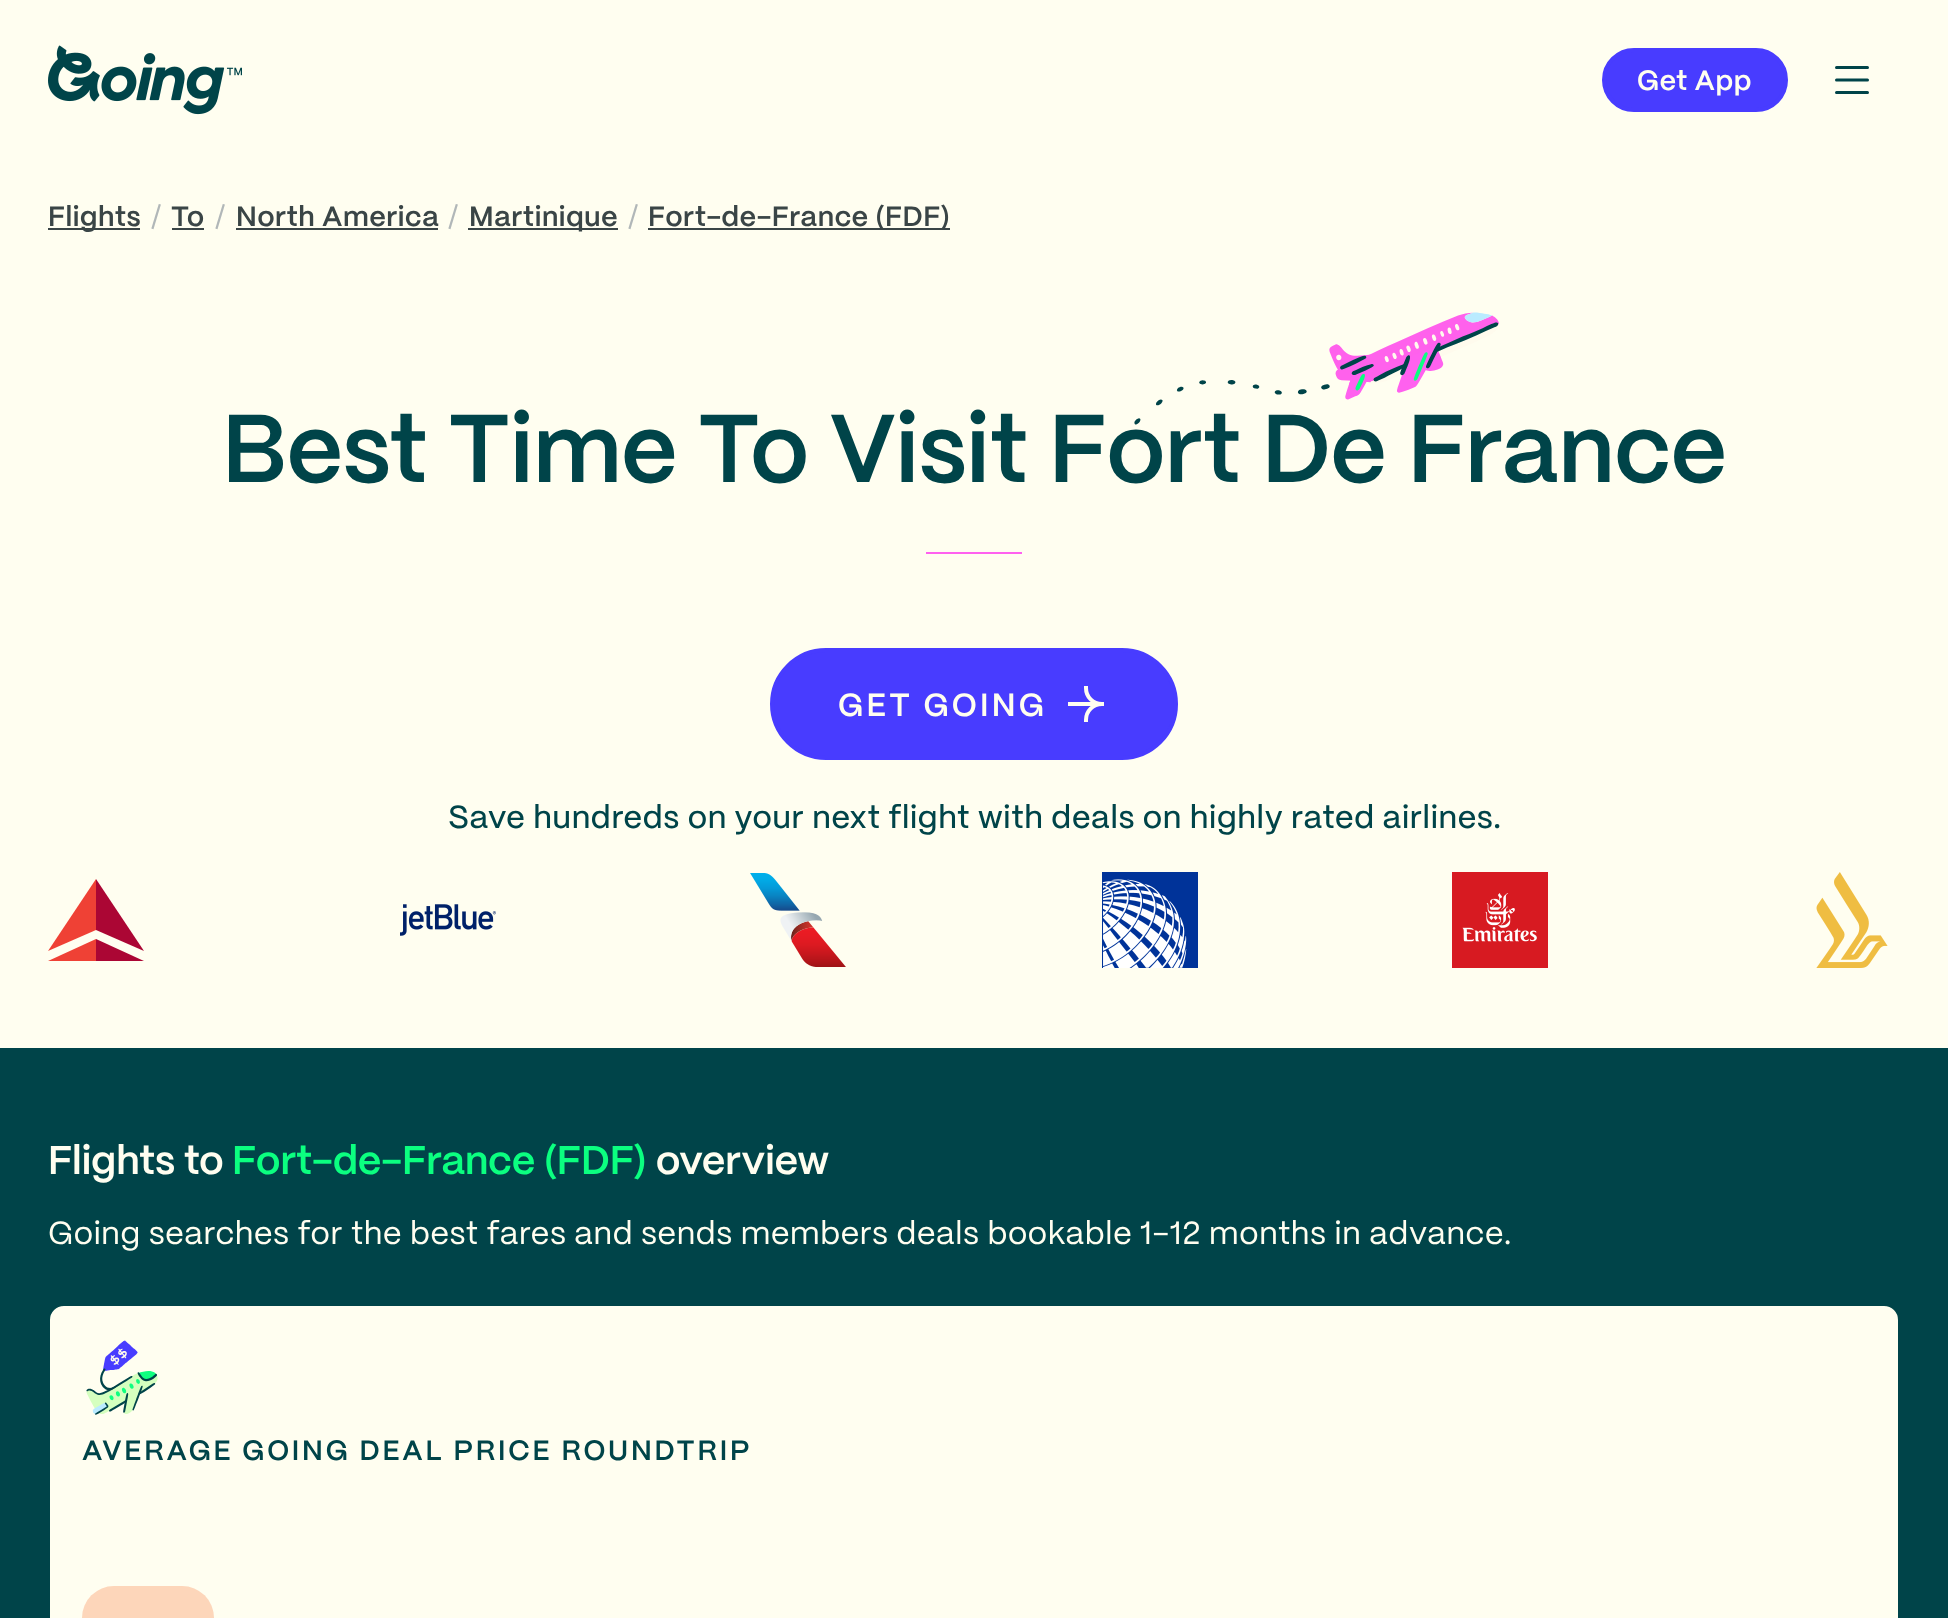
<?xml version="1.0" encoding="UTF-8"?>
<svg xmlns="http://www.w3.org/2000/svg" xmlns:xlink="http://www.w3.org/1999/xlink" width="1948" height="1618">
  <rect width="100%" height="100%" fill="#fffef0" />
  <image x="48" y="45" width="194" height="70" xlink:href="image1.png" />
  <rect x="1604" y="50" width="182" height="60" rx="30" fill="#483cff" stroke="#483cff" stroke-width="4" />
  <path d="M 1836.5 67.5 h 31 m -31 12.5 h 31 m -31 12.5 h 31" fill="none" stroke="#004449" stroke-width="3" stroke-linecap="round" stroke-linejoin="round" />
  <rect x="48" y="228" width="92" height="2" fill="#3a4546" />
  <rect x="172" y="228" width="32" height="2" fill="#3a4546" />
  <rect x="236" y="228" width="202" height="2" fill="#3a4546" />
  <rect x="468" y="228" width="150" height="2" fill="#3a4546" />
  <rect x="648" y="228" width="302" height="2" fill="#3a4546" />
  <rect x="926" y="552" width="96" height="2" fill="#ff61ef" />
  <rect x="772" y="650" width="404" height="108" rx="54" fill="#483cff" stroke="#483cff" stroke-width="4" />
  <rect x="1068" y="702" width="26" height="4" fill="#fffef0" />
  <path d="M 1102 704 c -9 0 -16 -7 -16 -16 m 16 16 c -9 0 -16 7 -16 16" fill="none" stroke="#fffef0" stroke-width="4" stroke-linecap="square" />
  <path d="M 48 951 l 48 -72 v 51 z" fill="#ef4135" />
  <path d="M 96 939 v 22 h -48 z" fill="#ef4135" />
  <path d="M 144 951 l -48 -72 v 51 z" fill="#ab0634" />
  <path d="M 96 939 v 22 h 48 z" fill="#ab0634" />
  <image x="400" y="904" width="96" height="32" xlink:href="image3.png" />
  <image x="750" y="873" width="96" height="94" xlink:href="image4.png" />
  <image x="1102" y="872" width="96" height="96" xlink:href="image5.png" />
  <image x="1452" y="872" width="96" height="96" xlink:href="image6.png" />
  <image x="1816" y="872" width="72" height="96" xlink:href="image7.png" />
  <rect y="1048" width="1948" height="570" fill="#004449" />
  <rect x="49" y="1305" width="1850" height="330" rx="15" fill="#fffef0" stroke="#004449" stroke-width="2" />
  <image x="86" y="1340" width="72" height="75" xlink:href="image8.png" />
  <rect x="82" y="1586" width="132" height="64" rx="32" fill="#fdd6ba" />
  <text x="1637" y="90" style="font-family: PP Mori; font-size: 28px; font-weight: 600; letter-spacing: 0.6px; fill: #fffef0">Get App</text>
  <text x="48" y="226" style="font-family: PP Mori; font-size: 28px; font-weight: 600; letter-spacing: 0.6px; fill: #3a4546">Flights</text>
  <text x="151" y="226" style="font-family: PP Mori; font-size: 28px; letter-spacing: 0.6px; fill: #b1b7b8">/</text>
  <text x="171" y="226" style="font-family: PP Mori; font-size: 28px; font-weight: 600; letter-spacing: 0.6px; fill: #3a4546">To</text>
  <text x="215" y="226" style="font-family: PP Mori; font-size: 28px; letter-spacing: 0.6px; fill: #b1b7b8">/</text>
  <text x="236" y="226" style="font-family: PP Mori; font-size: 28px; font-weight: 600; letter-spacing: 0.6px; fill: #3a4546">North America</text>
  <text x="448" y="226" style="font-family: PP Mori; font-size: 28px; letter-spacing: 0.6px; fill: #b1b7b8">/</text>
  <text x="469" y="226" style="font-family: PP Mori; font-size: 28px; font-weight: 600; letter-spacing: 0.6px; fill: #3a4546">Martinique</text>
  <text x="628" y="226" style="font-family: PP Mori; font-size: 28px; letter-spacing: 0.6px; fill: #b1b7b8">/</text>
  <text x="648" y="226" style="font-family: PP Mori; font-size: 28px; font-weight: 600; letter-spacing: 0.6px; fill: #3a4546">Fort-de-France (FDF)</text>
  <text x="222" y="482" style="font-family: PP Mori; font-size: 96px; font-weight: 600; fill: #004449">Best Time To Visit Fort De France</text>
  <image x="1134" y="312" width="365" height="113" xlink:href="image2.png" />
  <text x="838" y="716" style="font-family: PP Mori; font-size: 32px; font-weight: 600; letter-spacing: 3.25px; fill: #fffef0">GET GOING</text>
  <text x="448" y="828" style="font-family: PP Mori; font-size: 32px; font-weight: 500; letter-spacing: 0.65px; fill: #004449">Save hundreds on your next flight with deals on highly rated airlines.</text>
  <text x="48" y="1174" style="font-family: PP Mori; font-size: 40px; font-weight: 600; fill: #fffef0">Flights to</text>
  <text x="232" y="1174" style="font-family: PP Mori; font-size: 40px; font-weight: 600; fill: #0bff80">Fort-de-France (FDF)</text>
  <text x="656" y="1174" style="font-family: PP Mori; font-size: 40px; font-weight: 600; fill: #fffef0">overview</text>
  <text x="48" y="1244" style="font-family: PP Mori; font-size: 32px; letter-spacing: 0.65px; fill: #fffef0">Going searches for the best fares and sends members deals bookable 1-12 months in advance.</text>
  <text x="82" y="1460" style="font-family: PP Mori; font-size: 28px; font-weight: 600; letter-spacing: 2.8px; fill: #004449">AVERAGE GOING DEAL PRICE ROUNDTRIP</text>
</svg>
